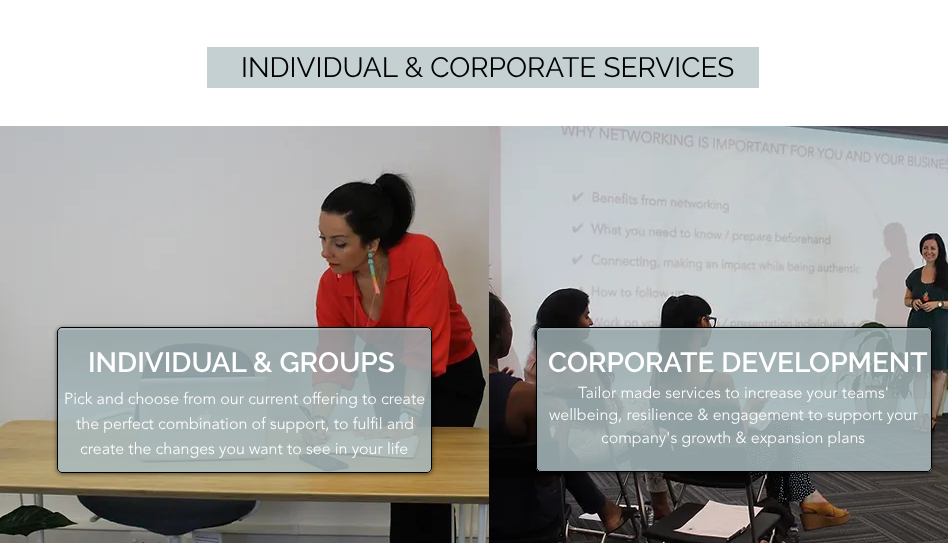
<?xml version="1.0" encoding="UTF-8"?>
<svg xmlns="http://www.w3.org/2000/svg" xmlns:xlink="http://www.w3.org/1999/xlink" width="948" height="543">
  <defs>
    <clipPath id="clip1"><path d="M 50 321 h 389 v 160 h -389 z m 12 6 h 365 c 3 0 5 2 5 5 v 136 c 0 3 -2 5 -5 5 h -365 c -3 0 -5 -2 -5 -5 v -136 c 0 -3 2 -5 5 -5 z" clip-rule="evenodd" /></clipPath>
    <clipPath id="clip2"><path d="M 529 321 h 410 v 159 h -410 z m 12 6 h 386 c 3 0 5 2 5 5 v 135 c 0 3 -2 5 -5 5 h -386 c -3 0 -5 -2 -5 -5 v -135 c 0 -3 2 -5 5 -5 z" clip-rule="evenodd" /></clipPath>
  </defs>
  <rect width="100%" height="100%" fill="#ffffff" />
  <rect x="207" y="47" width="552" height="41" fill="#c4d0d2" />
  <image x="0" y="126" width="489" height="417" xlink:href="image1.png" />
  <g clip-path="url(#clip1)">
    <rect x="57" y="328" width="375" height="146" rx="5" fill="#000000" fill-opacity="0.6" filter="blur(2px)" />
  </g>
  <rect x="57" y="327" width="375" height="146" rx="5" fill="#aabcbf" fill-opacity="0.85" />
  <image x="57" y="330" width="375" height="69" xlink:href="image2.png" />
  <rect x="57.5" y="327.5" width="374" height="145" rx="4.5" fill="none" stroke="#000000" />
  <image x="489" y="126" width="459" height="417" xlink:href="image3.png" />
  <g clip-path="url(#clip2)">
    <rect x="536" y="328" width="396" height="145" rx="5" fill="#000000" fill-opacity="0.6" filter="blur(2px)" />
  </g>
  <rect x="536" y="327" width="396" height="145" rx="5" fill="#aabcbf" fill-opacity="0.85" />
  <image x="536" y="330" width="396" height="69" xlink:href="image4.png" />
  <rect x="536.5" y="327.5" width="395" height="144" rx="4.5" fill="none" stroke="#000000" />
  <text x="241" y="77" style="font-family: Raleway; font-size: 28px; fill: #000000">INDIVIDUAL &amp; CORPORATE SERVICES</text>
  <text x="88" y="372" style="font-family: Raleway; font-size: 28px; font-weight: 600; fill: #ffffff">INDIVIDUAL &amp; GROUPS</text>
  <text x="64" y="404" style="font-family: 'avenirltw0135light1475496'; font-size: 16px; font-weight: 300; fill: #ffffff">Pick and choose from our current offering to create</text>
  <text x="76" y="429" style="font-family: 'avenirltw0135light1475496'; font-size: 16px; font-weight: 300; fill: #ffffff">the perfect combination of support, to fulfil and</text>
  <text x="80" y="454" style="font-family: 'avenirltw0135light1475496'; font-size: 16px; font-weight: 300; fill: #ffffff">create the changes you want to see in your life</text>
  <text x="548" y="372" style="font-family: Raleway; font-size: 28px; font-weight: 600; fill: #ffffff">CORPORATE DEVELOPMENT</text>
  <text x="578" y="398" style="font-family: 'avenirltw0135light1475496'; font-size: 16px; font-weight: 300; fill: #ffffff">Tailor made services to increase your teams'</text>
  <text x="549" y="420" style="font-family: 'avenirltw0135light1475496'; font-size: 16px; font-weight: 300; fill: #ffffff">wellbeing, resilience &amp; engagement to support your</text>
  <text x="601" y="443" style="font-family: 'avenirltw0135light1475496'; font-size: 16px; font-weight: 300; fill: #ffffff">company's growth &amp; expansion plans</text>
</svg>
